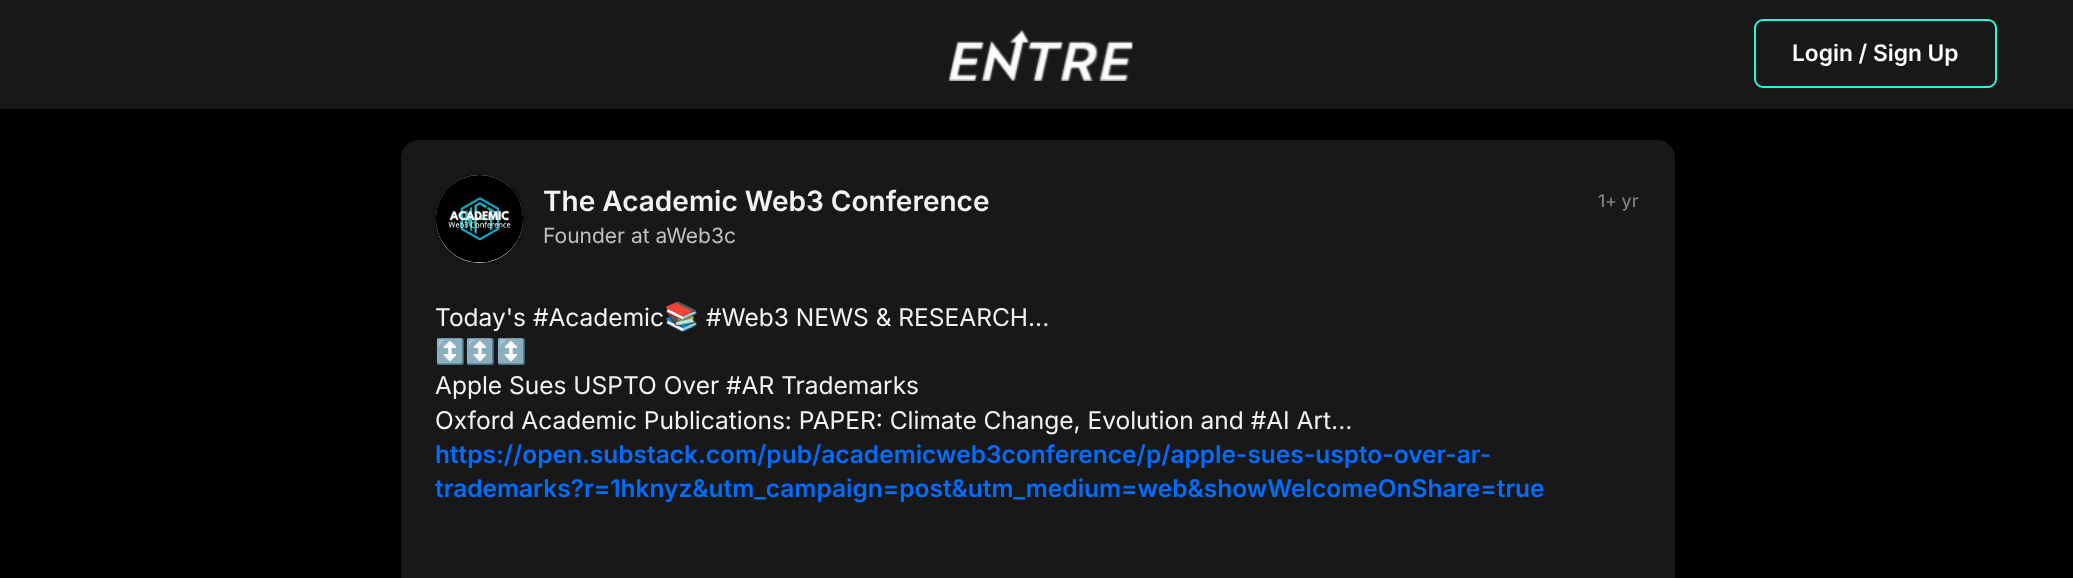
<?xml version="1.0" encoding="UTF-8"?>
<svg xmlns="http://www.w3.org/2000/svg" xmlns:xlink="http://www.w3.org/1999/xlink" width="2073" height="578">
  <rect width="100%" height="100%" fill="#000000" />
  <rect width="2073" height="109" fill="#181818" />
  <image x="947" y="29" width="186" height="52" xlink:href="image1.png" />
  <rect x="1755" y="20" width="241" height="67" rx="8" fill="none" stroke="#28f9da" stroke-width="2" />
  <rect x="401" y="140" width="1274" height="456" rx="18" fill="#181818" />
  <rect x="436" y="175" width="87" height="88" rx="43.5" fill="#000000" fill-opacity="0.5" filter="blur(2px)" />
  <rect x="436" y="175" width="87" height="88" rx="43.5" fill="#f2f2f2" />
  <image x="436" y="175" width="87" height="88" xlink:href="image2.png" />
  <text x="1792" y="61" style="font-family: Inter; font-size: 22.75px; font-weight: 600; fill: #ffffff">Login / Sign Up</text>
  <text x="543" y="211" style="font-family: Inter; font-size: 28px; font-weight: 600; fill: #f2f2f2">The Academic Web3 Conference</text>
  <text x="543" y="243" style="font-family: Inter; font-size: 21px; fill: #c0c0c0">Founder at aWeb3c</text>
  <text x="1598" y="207" style="font-family: Inter; font-size: 17.5px; font-weight: 500; fill: #808080">1+ yr</text>
  <text x="435" y="326" style="font-family: Inter; font-size: 24.5px; fill: #f2f2f2">Today's #Academic</text>
  <text x="664" y="326" style="font-family: Noto Color Emoji; font-size: 28px; fill: #f2f2f2">📚</text>
  <text x="706" y="326" style="font-family: Inter; font-size: 24.5px; fill: #f2f2f2">#Web3 NEWS &amp; RESEARCH...</text>
  <text x="435" y="360" style="font-family: Noto Color Emoji; font-size: 24.5px; fill: #f2f2f2">↕️↕️↕️</text>
  <text x="435" y="394" style="font-family: Inter; font-size: 24.5px; fill: #f2f2f2">Apple Sues USPTO Over #AR Trademarks</text>
  <text x="435" y="429" style="font-family: Inter; font-size: 24.5px; fill: #f2f2f2">Oxford Academic Publications: PAPER: Climate Change, Evolution and #AI Art...</text>
  <text x="435" y="463" style="font-family: Inter; font-size: 24.5px; font-weight: 600; fill: #006dff">https://open.substack.com/pub/academicweb3conference/p/apple-sues-uspto-over-ar-</text>
  <text x="435" y="497" style="font-family: Inter; font-size: 24.5px; font-weight: 600; fill: #006dff">trademarks?r=1hknyz&amp;utm_campaign=post&amp;utm_medium=web&amp;showWelcomeOnShare=true</text>
</svg>
